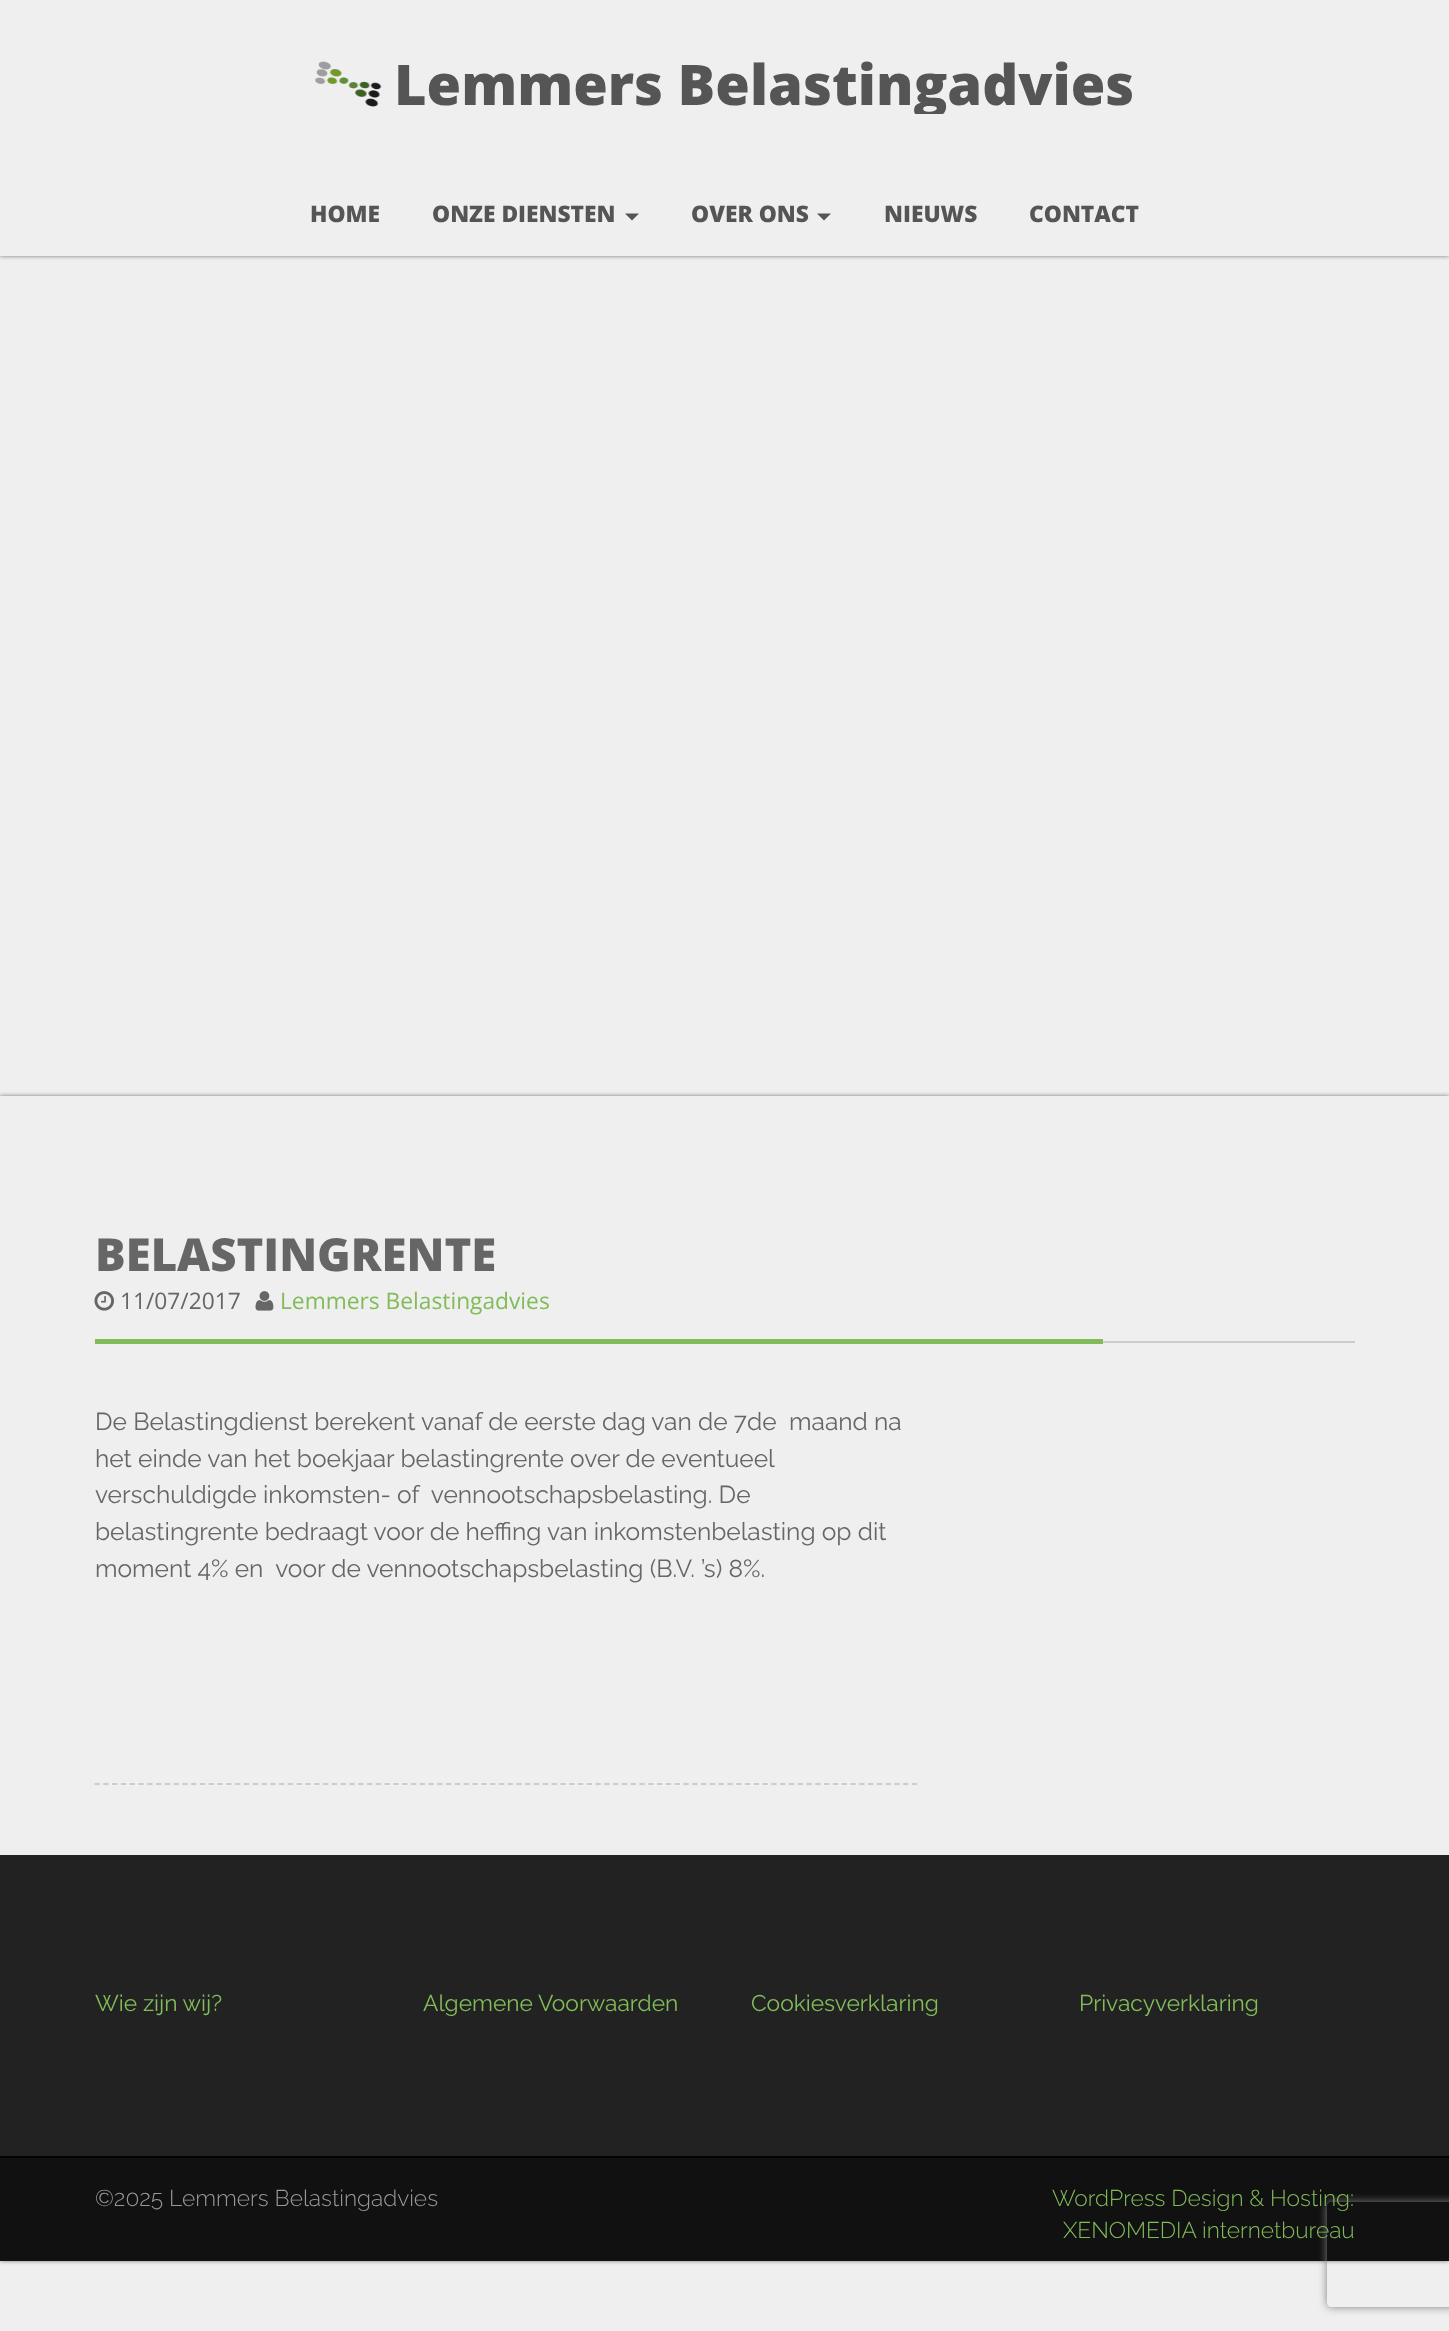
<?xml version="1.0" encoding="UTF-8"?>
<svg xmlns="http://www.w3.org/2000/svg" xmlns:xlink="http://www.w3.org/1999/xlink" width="1449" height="2331">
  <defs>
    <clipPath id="clip1"><path d="M 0 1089 h 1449 v 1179 h -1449 z m 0 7 h 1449 v 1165 h -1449 z" clip-rule="evenodd" /></clipPath>
    <clipPath id="clip2"><path d="M 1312 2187 h 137 v 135 h -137 z m 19 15 h 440 c 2 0 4 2 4 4 v 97 c 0 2 -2 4 -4 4 h -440 c -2 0 -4 -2 -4 -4 v -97 c 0 -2 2 -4 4 -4 z" clip-rule="evenodd" /></clipPath>
    <clipPath id="clip3"><rect x="315" y="58" width="819" height="56" /></clipPath>
  </defs>
  <rect width="100%" height="100%" fill="#efefef" />
  <rect width="1449" height="256" fill="#000000" fill-opacity="0.5" filter="blur(2px)" />
  <rect width="1449" height="256" fill="#efefef" />
  <image x="315" y="61" width="67" height="46" xlink:href="image1.png" />
  <path d="M 625 213.5 h 14 l -7 7 z" fill="#555555" />
  <path d="M 817 213.5 h 14 l -7 7 z" fill="#555555" />
  <g clip-path="url(#clip1)">
    <rect y="1096" width="1449" height="1165" fill="#000000" fill-opacity="0.5" filter="blur(2px)" />
  </g>
  <rect x="1103" y="1341" width="252" height="2" fill="#cccccc" />
  <image x="94" y="1291" width="20" height="20" xlink:href="image2.png" />
  <image x="255" y="1291" width="19" height="20" xlink:href="image3.png" />
  <rect x="95" y="1339" width="1008" height="5" fill="#81bc59" />
  <path d="M 94.5 1784 h 822.5" fill="none" stroke="#cccccc" stroke-width="1.8" stroke-dasharray="5.25 3.54" />
  <rect y="1855" width="1449" height="301" fill="#222222" />
  <rect y="2158" width="1449" height="103" fill="#111111" />
  <rect y="2156" width="1449" height="2" fill="#000000" />
  <g clip-path="url(#clip2)">
    <rect x="1327" y="2202" width="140" height="105" rx="4" fill="#808080" filter="blur(4.5px)" />
  </g>
  <g clip-path="url(#clip3)">
    <text x="394" y="105" style="font-family: Open Sans; font-size: 56px; font-weight: 800; fill: #555555">Lemmers Belastingadvies</text>
  </g>
  <text x="310" y="222" style="font-family: Open Sans; font-size: 22.75px; font-weight: 800; fill: #555555">HOME</text>
  <text x="432" y="222" style="font-family: Open Sans; font-size: 22.75px; font-weight: 800; fill: #555555">ONZE DIENSTEN</text>
  <text x="691" y="222" style="font-family: Open Sans; font-size: 22.75px; font-weight: 800; fill: #555555">OVER ONS</text>
  <text x="884" y="222" style="font-family: Open Sans; font-size: 22.75px; font-weight: 800; fill: #555555">NIEUWS</text>
  <text x="1029" y="222" style="font-family: Open Sans; font-size: 22.75px; font-weight: 800; fill: #555555">CONTACT</text>
  <text x="95" y="1271" style="font-family: Open Sans; font-size: 45.5px; font-weight: 800; fill: #666666">BELASTINGRENTE</text>
  <text x="120" y="1309" style="font-family: Open Sans; font-size: 22.75px; fill: #666666">11/07/2017</text>
  <text x="280" y="1309" style="font-family: Open Sans; font-size: 22.75px; fill: #81bc59">Lemmers Belastingadvies</text>
  <text x="95" y="1430" style="font-family: Raleway; font-size: 24.5px; fill: #666666" xml:space="preserve">De Belastingdienst berekent vanaf de eerste dag van de 7de  maand na</text>
  <text x="95" y="1467" style="font-family: Raleway; font-size: 24.5px; fill: #666666">het einde van het boekjaar belastingrente over de eventueel</text>
  <text x="95" y="1503" style="font-family: Raleway; font-size: 24.5px; fill: #666666" xml:space="preserve">verschuldigde inkomsten- of  vennootschapsbelasting. De</text>
  <text x="95" y="1540" style="font-family: Raleway; font-size: 24.5px; fill: #666666">belastingrente bedraagt voor de heffing van inkomstenbelasting op dit</text>
  <text x="95" y="1577" style="font-family: Raleway; font-size: 24.5px; fill: #666666" xml:space="preserve">moment 4% en  voor de vennootschapsbelasting (B.V. ’s) 8%.</text>
  <text x="95" y="2011" style="font-family: Raleway; font-size: 22.75px; fill: #81bc59">Wie zijn wij?</text>
  <text x="423" y="2011" style="font-family: Raleway; font-size: 22.75px; fill: #81bc59">Algemene Voorwaarden</text>
  <text x="751" y="2011" style="font-family: Raleway; font-size: 22.75px; fill: #81bc59">Cookiesverklaring</text>
  <text x="1079" y="2011" style="font-family: Raleway; font-size: 22.75px; fill: #81bc59">Privacyverklaring</text>
  <text x="95" y="2206" style="font-family: Raleway; font-size: 22.75px; font-weight: 300; fill: #999999">©2025 Lemmers Belastingadvies</text>
  <text x="1052" y="2206" style="font-family: Raleway; font-size: 22.75px; font-weight: 300; fill: #81bc59">WordPress Design &amp; Hosting:</text>
  <text x="1063" y="2238" style="font-family: Raleway; font-size: 22.75px; font-weight: 300; fill: #81bc59">XENOMEDIA internetbureau</text>
</svg>
